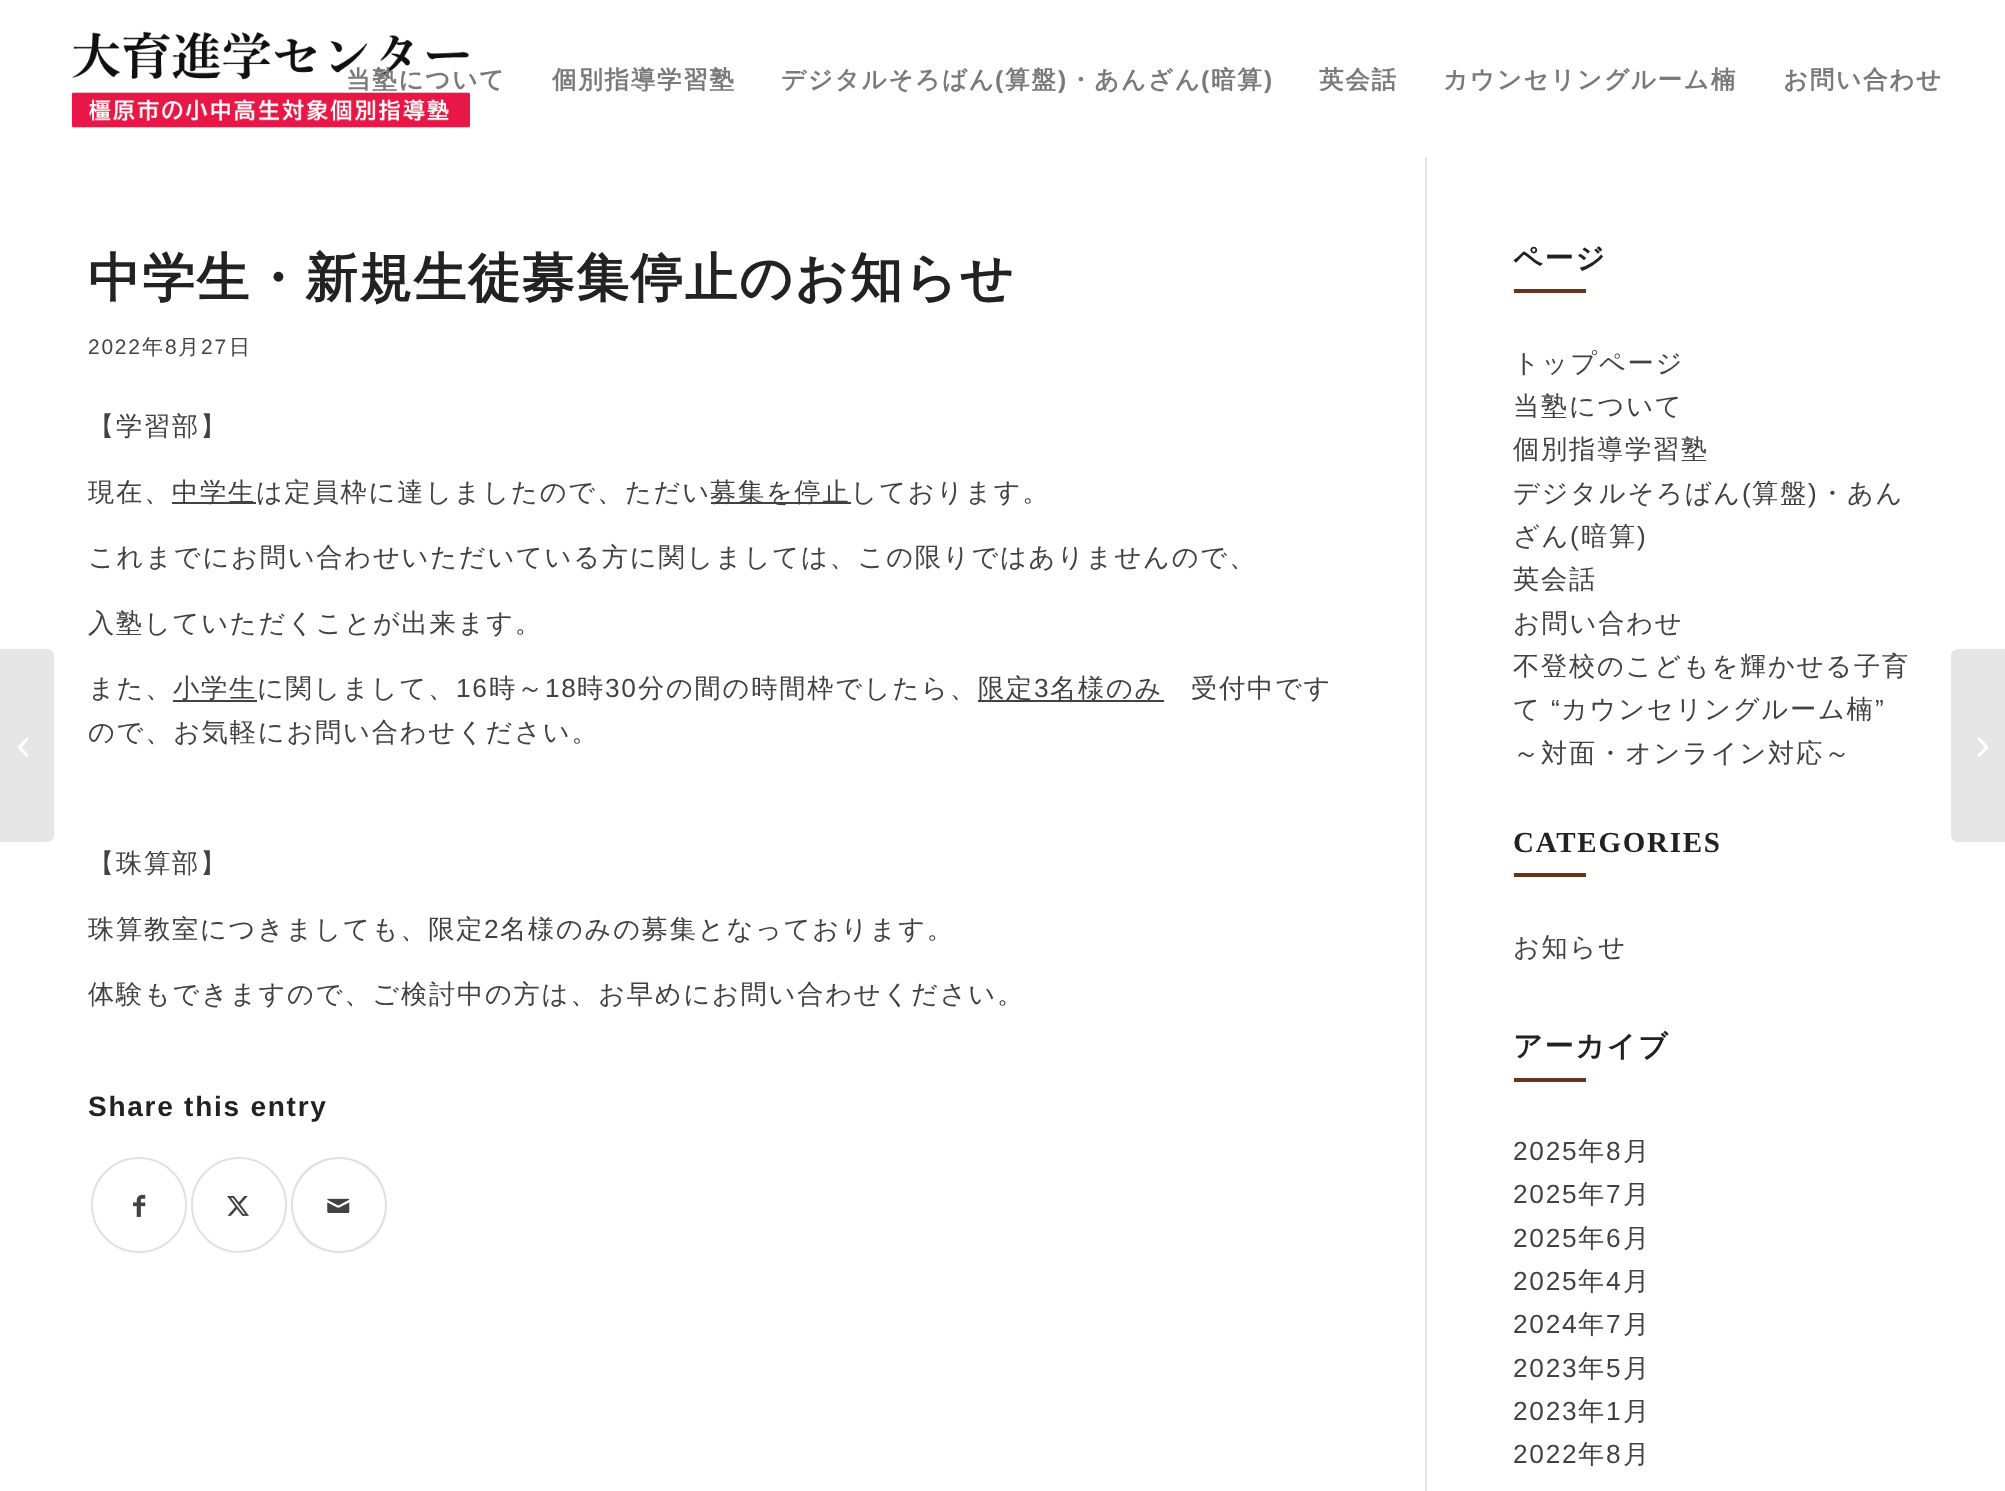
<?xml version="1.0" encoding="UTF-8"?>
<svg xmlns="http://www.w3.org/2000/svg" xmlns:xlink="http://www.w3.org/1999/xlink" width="2005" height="1491">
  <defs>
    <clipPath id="clip1"><rect x="88" y="243" width="1337" height="1189" /></clipPath>
  </defs>
  <rect width="100%" height="100%" fill="#ffffff" />
  <image x="71" y="31" width="399" height="97" xlink:href="image1.png" />
  <path d="M 0 649 h 47 c 4 0 7 3 7 7 v 179 c 0 4 -3 7 -7 7 h -47 z" fill="#e6e6e6" />
  <image x="18" y="737" width="10" height="20" xlink:href="image2.png" />
  <rect x="1425" y="156" width="2" height="1335" fill="#e1e1e1" />
  <rect x="1425" y="156" width="2" height="2" fill="#fefefe" />
  <rect x="172" y="502" width="84" height="2" fill="#424242" />
  <rect x="711" y="502" width="140" height="2" fill="#424242" />
  <rect x="173" y="700" width="84" height="2" fill="#424242" />
  <rect x="978" y="700" width="186" height="2" fill="#424242" />
  <circle cx="139" cy="1205" r="47" fill="none" stroke="#e1e1e1" stroke-width="2" />
  <image x="133" y="1194" width="13" height="23" xlink:href="image3.png" />
  <circle cx="239" cy="1205" r="47" fill="none" stroke="#e1e1e1" stroke-width="2" />
  <image x="227" y="1196" width="22" height="20" xlink:href="image4.png" />
  <path d="M 339 1157 c 27 0 48 21 48 48 c 0 27 -21 48 -48 48 c -27 0 -48 -21 -48 -48 c 0 -27 21 -48 48 -48 z m 0 2 c -25 0 -46 21 -46 46 c 0 25 21 46 46 46 c 25 0 46 -21 46 -46 c 0 -25 -21 -46 -46 -46 z" fill="#e1e1e1" fill-rule="evenodd" />
  <image x="327" y="1198" width="23" height="15" xlink:href="image5.png" />
  <rect x="1514" y="289" width="72" height="4" fill="#6a331c" />
  <rect x="1514" y="873" width="72" height="4" fill="#6a331c" />
  <rect x="1514" y="1078" width="72" height="4" fill="#6a331c" />
  <path d="M 1958 649 h 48 v 193 h -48 c -4 0 -7 -3 -7 -7 v -179 c 0 -4 3 -7 7 -7 z" fill="#e6e6e6" />
  <image x="1978" y="737" width="10" height="20" xlink:href="image6.png" />
  <text x="346" y="88" style="font-family: WenQuanYi Zen Hei; font-size: 24.5px; font-weight: bold; letter-spacing: 1.75px; fill: #7a7a7a">当塾について</text>
  <text x="552" y="88" style="font-family: WenQuanYi Zen Hei; font-size: 24.5px; font-weight: bold; letter-spacing: 1.75px; fill: #7a7a7a">個別指導学習塾</text>
  <text x="781" y="88" style="font-family: WenQuanYi Zen Hei; font-size: 24.5px; font-weight: bold; letter-spacing: 1.75px; fill: #7a7a7a">デジタルそろばん</text>
  <text x="995" y="88" style="font-family: Liberation Sans; font-size: 24.5px; font-weight: bold; letter-spacing: 1.75px; fill: #7a7a7a">(</text>
  <text x="1005" y="88" style="font-family: WenQuanYi Zen Hei; font-size: 24.5px; font-weight: bold; letter-spacing: 1.75px; fill: #7a7a7a">算盤</text>
  <text x="1058" y="88" style="font-family: Liberation Sans; font-size: 24.5px; font-weight: bold; letter-spacing: 1.75px; fill: #7a7a7a">)</text>
  <text x="1068" y="88" style="font-family: WenQuanYi Zen Hei; font-size: 24.5px; font-weight: bold; letter-spacing: 1.75px; fill: #7a7a7a">・あんざん</text>
  <text x="1201" y="88" style="font-family: Liberation Sans; font-size: 24.5px; font-weight: bold; letter-spacing: 1.75px; fill: #7a7a7a">(</text>
  <text x="1211" y="88" style="font-family: WenQuanYi Zen Hei; font-size: 24.5px; font-weight: bold; letter-spacing: 1.75px; fill: #7a7a7a">暗算</text>
  <text x="1264" y="88" style="font-family: Liberation Sans; font-size: 24.5px; font-weight: bold; letter-spacing: 1.75px; fill: #7a7a7a">)</text>
  <text x="1319" y="88" style="font-family: WenQuanYi Zen Hei; font-size: 24.5px; font-weight: bold; letter-spacing: 1.75px; fill: #7a7a7a">英会話</text>
  <text x="1443" y="88" style="font-family: WenQuanYi Zen Hei; font-size: 24.5px; font-weight: bold; letter-spacing: 1.75px; fill: #7a7a7a">カウンセリングルーム楠</text>
  <text x="1783" y="88" style="font-family: WenQuanYi Zen Hei; font-size: 24.5px; font-weight: bold; letter-spacing: 1.75px; fill: #7a7a7a">お問い合わせ</text>
  <text x="88" y="296" style="font-family: WenQuanYi Zen Hei; font-size: 52.5px; font-weight: bold; letter-spacing: 1.75px; fill: #222222">中学生・新規生徒募集停止のお知らせ</text>
  <text x="88" y="354" style="font-family: Liberation Sans; font-size: 21px; letter-spacing: 1.75px; fill: #424242">2022</text>
  <text x="142" y="354" style="font-family: WenQuanYi Zen Hei; font-size: 21px; font-weight: 500; letter-spacing: 1.75px; fill: #424242">年</text>
  <text x="165" y="354" style="font-family: Liberation Sans; font-size: 21px; letter-spacing: 1.75px; fill: #424242">8</text>
  <text x="178" y="354" style="font-family: WenQuanYi Zen Hei; font-size: 21px; font-weight: 500; letter-spacing: 1.75px; fill: #424242">月</text>
  <text x="201" y="354" style="font-family: Liberation Sans; font-size: 21px; letter-spacing: 1.75px; fill: #424242">27</text>
  <text x="229" y="354" style="font-family: WenQuanYi Zen Hei; font-size: 21px; font-weight: 500; letter-spacing: 1.75px; fill: #424242">日</text>
  <text x="88" y="435" style="font-family: WenQuanYi Zen Hei; font-size: 26.25px; font-weight: 500; letter-spacing: 1.75px; fill: #424242">【学習部】</text>
  <g clip-path="url(#clip1)">
    <text x="88" y="501" style="font-family: WenQuanYi Zen Hei; font-size: 26.25px; font-weight: 500; letter-spacing: 1.75px; fill: #424242">現在、</text>
  </g>
  <text x="172" y="501" style="font-family: WenQuanYi Zen Hei; font-size: 26.25px; font-weight: 500; letter-spacing: 1.75px; fill: #424242">中学生は定員枠に達しましたので、ただい</text>
  <text x="710" y="501" style="font-family: WenQuanYi Zen Hei; font-size: 26.25px; font-weight: 500; letter-spacing: 1.75px; fill: #424242">募集を停止しております。</text>
  <text x="88" y="566" style="font-family: WenQuanYi Zen Hei; font-size: 26.25px; font-weight: 500; letter-spacing: 1.75px; fill: #424242">これまでにお問い合わせいただいている方に関しましては、この限りではありませんので、</text>
  <text x="88" y="632" style="font-family: WenQuanYi Zen Hei; font-size: 26.25px; font-weight: 500; letter-spacing: 1.75px; fill: #424242">入塾していただくことが出来ます。</text>
  <text x="88" y="697" style="font-family: WenQuanYi Zen Hei; font-size: 26.25px; font-weight: 500; letter-spacing: 1.75px; fill: #424242">また、</text>
  <text x="173" y="697" style="font-family: WenQuanYi Zen Hei; font-size: 26.25px; font-weight: 500; letter-spacing: 1.75px; fill: #424242">小学生に関しまして、</text>
  <text x="456" y="697" style="font-family: Liberation Sans; font-size: 26.25px; letter-spacing: 1.75px; fill: #424242">16</text>
  <text x="489" y="697" style="font-family: WenQuanYi Zen Hei; font-size: 26.25px; font-weight: 500; letter-spacing: 1.75px; fill: #424242">時～</text>
  <text x="545" y="697" style="font-family: Liberation Sans; font-size: 26.25px; letter-spacing: 1.75px; fill: #424242">18</text>
  <text x="577" y="697" style="font-family: WenQuanYi Zen Hei; font-size: 26.25px; font-weight: 500; letter-spacing: 1.75px; fill: #424242">時</text>
  <text x="605" y="697" style="font-family: Liberation Sans; font-size: 26.25px; letter-spacing: 1.75px; fill: #424242">30</text>
  <text x="638" y="697" style="font-family: WenQuanYi Zen Hei; font-size: 26.25px; font-weight: 500; letter-spacing: 1.75px; fill: #424242">分の間の時間枠でしたら、</text>
  <text x="978" y="697" style="font-family: WenQuanYi Zen Hei; font-size: 26.25px; font-weight: 500; letter-spacing: 1.75px; fill: #424242">限定</text>
  <text x="1034" y="697" style="font-family: Liberation Sans; font-size: 26.25px; letter-spacing: 1.75px; fill: #424242">3</text>
  <text x="1050" y="697" style="font-family: WenQuanYi Zen Hei; font-size: 26.25px; font-weight: 500; letter-spacing: 1.75px; fill: #424242">名様のみ</text>
  <text x="1191" y="697" style="font-family: WenQuanYi Zen Hei; font-size: 26.25px; font-weight: 500; letter-spacing: 1.75px; fill: #424242">受付中です</text>
  <text x="88" y="741" style="font-family: WenQuanYi Zen Hei; font-size: 26.25px; font-weight: 500; letter-spacing: 1.75px; fill: #424242">ので、お気軽にお問い合わせください。</text>
  <text x="88" y="872" style="font-family: WenQuanYi Zen Hei; font-size: 26.25px; font-weight: 500; letter-spacing: 1.75px; fill: #424242">【珠算部】</text>
  <g clip-path="url(#clip1)">
    <text x="88" y="938" style="font-family: WenQuanYi Zen Hei; font-size: 26.25px; font-weight: 500; letter-spacing: 1.75px; fill: #424242">珠算教室につきましても、限定</text>
  </g>
  <text x="484" y="938" style="font-family: Liberation Sans; font-size: 26.25px; letter-spacing: 1.75px; fill: #424242">2</text>
  <text x="500" y="938" style="font-family: WenQuanYi Zen Hei; font-size: 26.25px; font-weight: 500; letter-spacing: 1.75px; fill: #424242">名様のみの募集となっております。</text>
  <text x="88" y="1003" style="font-family: WenQuanYi Zen Hei; font-size: 26.25px; font-weight: 500; letter-spacing: 1.75px; fill: #424242">体験もできますので、ご検討中の方は、お早めにお問い合わせください。</text>
  <text x="88" y="1116" style="font-family: Liberation Sans; font-size: 28px; font-weight: bold; letter-spacing: 1.75px; fill: #222222">Share this entry</text>
  <text x="1513" y="268" style="font-family: WenQuanYi Zen Hei; font-size: 29px; font-weight: bold; letter-spacing: 1.75px; fill: #222222">ページ</text>
  <text x="1513" y="372" style="font-family: WenQuanYi Zen Hei; font-size: 26.25px; font-weight: 500; letter-spacing: 1.75px; fill: #424242">トップページ</text>
  <text x="1513" y="415" style="font-family: WenQuanYi Zen Hei; font-size: 26.25px; font-weight: 500; letter-spacing: 1.75px; fill: #424242">当塾について</text>
  <text x="1513" y="458" style="font-family: WenQuanYi Zen Hei; font-size: 26.25px; font-weight: 500; letter-spacing: 1.75px; fill: #424242">個別指導学習塾</text>
  <text x="1513" y="502" style="font-family: WenQuanYi Zen Hei; font-size: 26.25px; font-weight: 500; letter-spacing: 1.75px; fill: #424242">デジタルそろばん</text>
  <text x="1742" y="502" style="font-family: Liberation Sans; font-size: 26.25px; letter-spacing: 1.75px; fill: #424242">(</text>
  <text x="1752" y="502" style="font-family: WenQuanYi Zen Hei; font-size: 26.25px; font-weight: 500; letter-spacing: 1.75px; fill: #424242">算盤</text>
  <text x="1808" y="502" style="font-family: Liberation Sans; font-size: 26.25px; letter-spacing: 1.75px; fill: #424242">)</text>
  <text x="1819" y="502" style="font-family: WenQuanYi Zen Hei; font-size: 26.25px; font-weight: 500; letter-spacing: 1.75px; fill: #424242">・あん</text>
  <text x="1513" y="545" style="font-family: WenQuanYi Zen Hei; font-size: 26.25px; font-weight: 500; letter-spacing: 1.75px; fill: #424242">ざん</text>
  <text x="1570" y="545" style="font-family: Liberation Sans; font-size: 26.25px; letter-spacing: 1.75px; fill: #424242">(</text>
  <text x="1581" y="545" style="font-family: WenQuanYi Zen Hei; font-size: 26.25px; font-weight: 500; letter-spacing: 1.75px; fill: #424242">暗算</text>
  <text x="1637" y="545" style="font-family: Liberation Sans; font-size: 26.25px; letter-spacing: 1.75px; fill: #424242">)</text>
  <text x="1513" y="588" style="font-family: WenQuanYi Zen Hei; font-size: 26.25px; font-weight: 500; letter-spacing: 1.75px; fill: #424242">英会話</text>
  <text x="1513" y="632" style="font-family: WenQuanYi Zen Hei; font-size: 26.25px; font-weight: 500; letter-spacing: 1.75px; fill: #424242">お問い合わせ</text>
  <text x="1513" y="675" style="font-family: WenQuanYi Zen Hei; font-size: 26.25px; font-weight: 500; letter-spacing: 1.75px; fill: #424242">不登校のこどもを輝かせる子育</text>
  <text x="1513" y="718" style="font-family: WenQuanYi Zen Hei; font-size: 26.25px; font-weight: 500; letter-spacing: 1.75px; fill: #424242">て</text>
  <text x="1551" y="718" style="font-family: Liberation Sans; font-size: 26.25px; letter-spacing: 1.75px; fill: #424242">“</text>
  <text x="1561" y="718" style="font-family: WenQuanYi Zen Hei; font-size: 26.25px; font-weight: 500; letter-spacing: 1.75px; fill: #424242">カウンセリングルーム楠</text>
  <text x="1875" y="718" style="font-family: Liberation Sans; font-size: 26.25px; letter-spacing: 1.75px; fill: #424242">”</text>
  <text x="1513" y="762" style="font-family: WenQuanYi Zen Hei; font-size: 26.25px; font-weight: 500; letter-spacing: 1.75px; fill: #424242">～対面・オンライン対応～</text>
  <text x="1513" y="852" style="font-family: Liberation Serif; font-size: 29px; font-weight: bold; letter-spacing: 1.75px; fill: #222222">CATEGORIES</text>
  <text x="1513" y="956" style="font-family: WenQuanYi Zen Hei; font-size: 26.25px; font-weight: 500; letter-spacing: 1.75px; fill: #424242">お知らせ</text>
  <text x="1513" y="1056" style="font-family: WenQuanYi Zen Hei; font-size: 29px; font-weight: bold; letter-spacing: 1.75px; fill: #222222">アーカイブ</text>
  <text x="1513" y="1160" style="font-family: Liberation Sans; font-size: 26.25px; letter-spacing: 1.75px; fill: #424242">2025</text>
  <text x="1578" y="1160" style="font-family: WenQuanYi Zen Hei; font-size: 26.25px; font-weight: 500; letter-spacing: 1.75px; fill: #424242">年</text>
  <text x="1606" y="1160" style="font-family: Liberation Sans; font-size: 26.25px; letter-spacing: 1.75px; fill: #424242">8</text>
  <text x="1623" y="1160" style="font-family: WenQuanYi Zen Hei; font-size: 26.25px; font-weight: 500; letter-spacing: 1.75px; fill: #424242">月</text>
  <text x="1513" y="1203" style="font-family: Liberation Sans; font-size: 26.25px; letter-spacing: 1.75px; fill: #424242">2025</text>
  <text x="1578" y="1203" style="font-family: WenQuanYi Zen Hei; font-size: 26.25px; font-weight: 500; letter-spacing: 1.75px; fill: #424242">年</text>
  <text x="1606" y="1203" style="font-family: Liberation Sans; font-size: 26.25px; letter-spacing: 1.75px; fill: #424242">7</text>
  <text x="1623" y="1203" style="font-family: WenQuanYi Zen Hei; font-size: 26.25px; font-weight: 500; letter-spacing: 1.75px; fill: #424242">月</text>
  <text x="1513" y="1247" style="font-family: Liberation Sans; font-size: 26.25px; letter-spacing: 1.75px; fill: #424242">2025</text>
  <text x="1578" y="1247" style="font-family: WenQuanYi Zen Hei; font-size: 26.25px; font-weight: 500; letter-spacing: 1.75px; fill: #424242">年</text>
  <text x="1606" y="1247" style="font-family: Liberation Sans; font-size: 26.25px; letter-spacing: 1.75px; fill: #424242">6</text>
  <text x="1623" y="1247" style="font-family: WenQuanYi Zen Hei; font-size: 26.25px; font-weight: 500; letter-spacing: 1.75px; fill: #424242">月</text>
  <text x="1513" y="1290" style="font-family: Liberation Sans; font-size: 26.25px; letter-spacing: 1.75px; fill: #424242">2025</text>
  <text x="1578" y="1290" style="font-family: WenQuanYi Zen Hei; font-size: 26.25px; font-weight: 500; letter-spacing: 1.75px; fill: #424242">年</text>
  <text x="1606" y="1290" style="font-family: Liberation Sans; font-size: 26.25px; letter-spacing: 1.75px; fill: #424242">4</text>
  <text x="1623" y="1290" style="font-family: WenQuanYi Zen Hei; font-size: 26.25px; font-weight: 500; letter-spacing: 1.75px; fill: #424242">月</text>
  <text x="1513" y="1333" style="font-family: Liberation Sans; font-size: 26.25px; letter-spacing: 1.75px; fill: #424242">2024</text>
  <text x="1578" y="1333" style="font-family: WenQuanYi Zen Hei; font-size: 26.25px; font-weight: 500; letter-spacing: 1.75px; fill: #424242">年</text>
  <text x="1606" y="1333" style="font-family: Liberation Sans; font-size: 26.25px; letter-spacing: 1.75px; fill: #424242">7</text>
  <text x="1623" y="1333" style="font-family: WenQuanYi Zen Hei; font-size: 26.25px; font-weight: 500; letter-spacing: 1.75px; fill: #424242">月</text>
  <text x="1513" y="1377" style="font-family: Liberation Sans; font-size: 26.25px; letter-spacing: 1.75px; fill: #424242">2023</text>
  <text x="1578" y="1377" style="font-family: WenQuanYi Zen Hei; font-size: 26.25px; font-weight: 500; letter-spacing: 1.75px; fill: #424242">年</text>
  <text x="1606" y="1377" style="font-family: Liberation Sans; font-size: 26.25px; letter-spacing: 1.75px; fill: #424242">5</text>
  <text x="1623" y="1377" style="font-family: WenQuanYi Zen Hei; font-size: 26.25px; font-weight: 500; letter-spacing: 1.75px; fill: #424242">月</text>
  <text x="1513" y="1420" style="font-family: Liberation Sans; font-size: 26.25px; letter-spacing: 1.75px; fill: #424242">2023</text>
  <text x="1578" y="1420" style="font-family: WenQuanYi Zen Hei; font-size: 26.25px; font-weight: 500; letter-spacing: 1.75px; fill: #424242">年</text>
  <text x="1606" y="1420" style="font-family: Liberation Sans; font-size: 26.25px; letter-spacing: 1.75px; fill: #424242">1</text>
  <text x="1623" y="1420" style="font-family: WenQuanYi Zen Hei; font-size: 26.25px; font-weight: 500; letter-spacing: 1.75px; fill: #424242">月</text>
  <text x="1513" y="1463" style="font-family: Liberation Sans; font-size: 26.25px; letter-spacing: 1.75px; fill: #424242">2022</text>
  <text x="1578" y="1463" style="font-family: WenQuanYi Zen Hei; font-size: 26.25px; font-weight: 500; letter-spacing: 1.75px; fill: #424242">年</text>
  <text x="1606" y="1463" style="font-family: Liberation Sans; font-size: 26.25px; letter-spacing: 1.75px; fill: #424242">8</text>
  <text x="1623" y="1463" style="font-family: WenQuanYi Zen Hei; font-size: 26.25px; font-weight: 500; letter-spacing: 1.75px; fill: #424242">月</text>
</svg>
